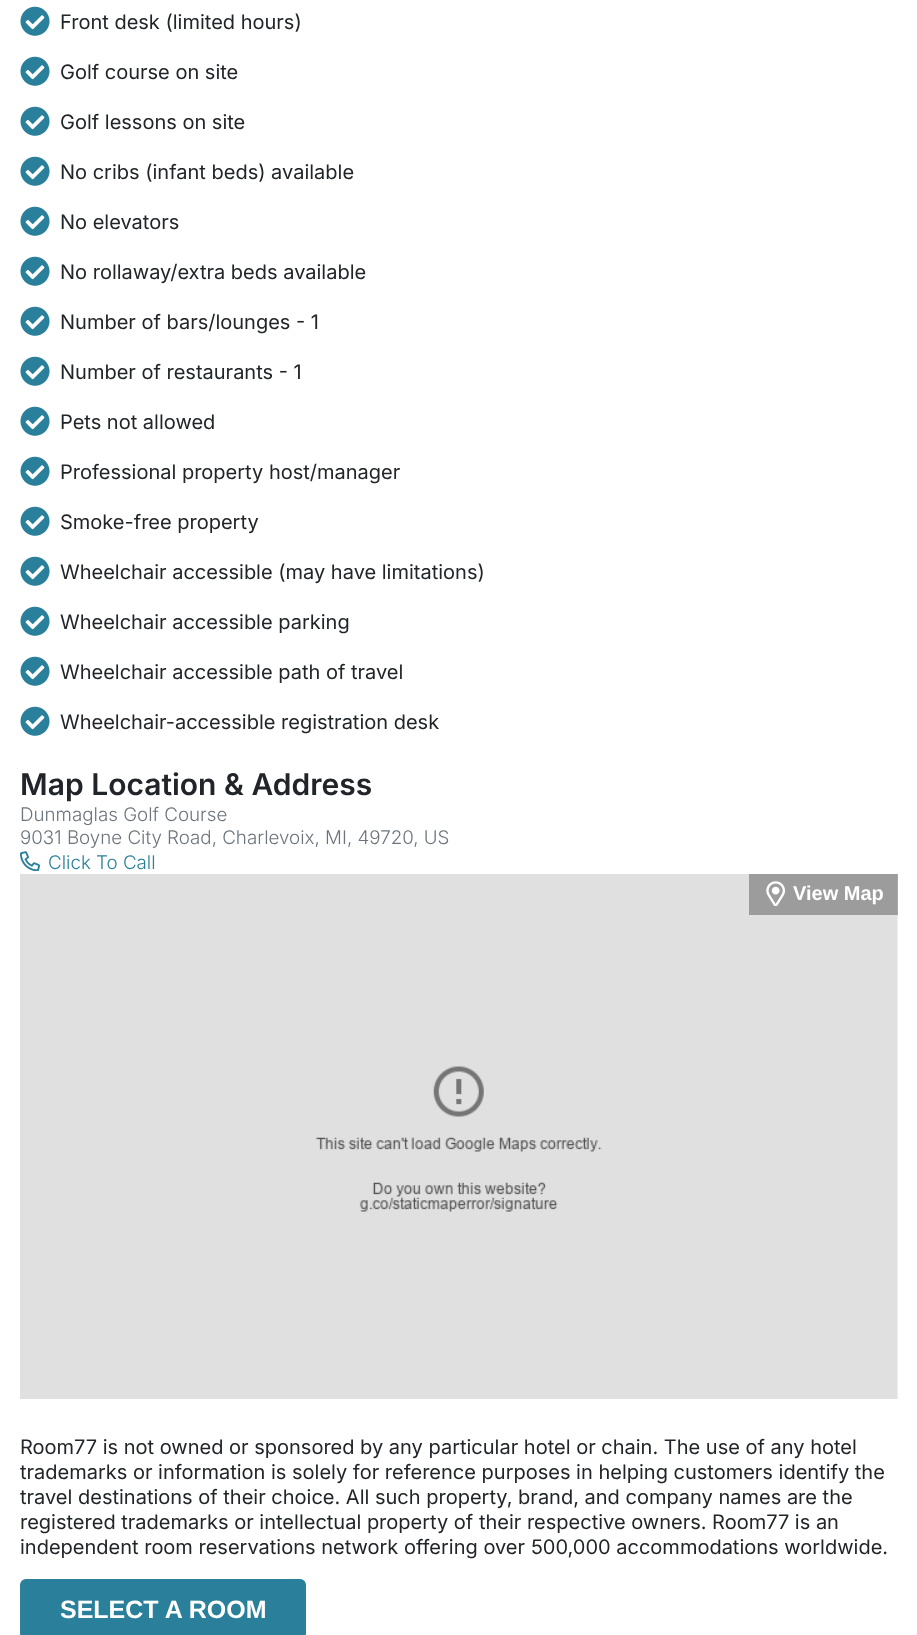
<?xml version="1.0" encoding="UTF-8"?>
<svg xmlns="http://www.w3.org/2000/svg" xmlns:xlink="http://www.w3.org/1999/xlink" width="917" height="1635">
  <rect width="100%" height="100%" fill="#ffffff" />
  <image x="20" y="6" width="30" height="30" xlink:href="image1.png" />
  <image x="20" y="56" width="30" height="30" xlink:href="image1.png" />
  <image x="20" y="106" width="30" height="30" xlink:href="image1.png" />
  <image x="20" y="156" width="30" height="30" xlink:href="image1.png" />
  <image x="20" y="206" width="30" height="30" xlink:href="image1.png" />
  <image x="20" y="256" width="30" height="30" xlink:href="image1.png" />
  <image x="20" y="306" width="30" height="30" xlink:href="image1.png" />
  <image x="20" y="356" width="30" height="30" xlink:href="image1.png" />
  <image x="20" y="406" width="30" height="30" xlink:href="image1.png" />
  <image x="20" y="456" width="30" height="30" xlink:href="image1.png" />
  <image x="20" y="506" width="30" height="30" xlink:href="image1.png" />
  <image x="20" y="556" width="30" height="30" xlink:href="image1.png" />
  <image x="20" y="606" width="30" height="30" xlink:href="image1.png" />
  <image x="20" y="656" width="30" height="30" xlink:href="image1.png" />
  <image x="20" y="706" width="30" height="30" xlink:href="image1.png" />
  <image x="20" y="851" width="20" height="20" xlink:href="image2.png" />
  <image x="20" y="874" width="878" height="525" xlink:href="image3.png" />
  <rect x="749" y="874" width="149" height="41" fill="#000000" fill-opacity="0.3" />
  <image x="766" y="881" width="19" height="25" xlink:href="image4.png" />
  <rect x="20" y="1579" width="286" height="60" rx="6" fill="#2a809a" />
  <text x="60" y="29" style="font-family: Inter; font-size: 20px; fill: #212529">Front desk (limited hours)</text>
  <text x="60" y="79" style="font-family: Inter; font-size: 20px; fill: #212529">Golf course on site</text>
  <text x="60" y="129" style="font-family: Inter; font-size: 20px; fill: #212529">Golf lessons on site</text>
  <text x="60" y="179" style="font-family: Inter; font-size: 20px; fill: #212529">No cribs (infant beds) available</text>
  <text x="60" y="229" style="font-family: Inter; font-size: 20px; fill: #212529">No elevators</text>
  <text x="60" y="279" style="font-family: Inter; font-size: 20px; fill: #212529">No rollaway/extra beds available</text>
  <text x="60" y="329" style="font-family: Inter; font-size: 20px; fill: #212529">Number of bars/lounges - 1</text>
  <text x="60" y="379" style="font-family: Inter; font-size: 20px; fill: #212529">Number of restaurants - 1</text>
  <text x="60" y="429" style="font-family: Inter; font-size: 20px; fill: #212529">Pets not allowed</text>
  <text x="60" y="479" style="font-family: Inter; font-size: 20px; fill: #212529">Professional property host/manager</text>
  <text x="60" y="529" style="font-family: Inter; font-size: 20px; fill: #212529">Smoke-free property</text>
  <text x="60" y="579" style="font-family: Inter; font-size: 20px; fill: #212529">Wheelchair accessible (may have limitations)</text>
  <text x="60" y="629" style="font-family: Inter; font-size: 20px; fill: #212529">Wheelchair accessible parking</text>
  <text x="60" y="679" style="font-family: Inter; font-size: 20px; fill: #212529">Wheelchair accessible path of travel</text>
  <text x="60" y="729" style="font-family: Inter; font-size: 20px; fill: #212529">Wheelchair-accessible registration desk</text>
  <text x="20" y="795" style="font-family: Inter; font-size: 30px; font-weight: 600; fill: #212529">Map Location &amp; Address</text>
  <text x="20" y="821" style="font-family: Inter; font-size: 18.75px; font-weight: 300; fill: #6c757d">Dunmaglas Golf Course</text>
  <text x="20" y="844" style="font-family: Inter; font-size: 18.75px; font-weight: 300; fill: #6c757d">9031 Boyne City Road, Charlevoix, MI, 49720, US</text>
  <text x="48" y="869" style="font-family: Inter; font-size: 18.75px; font-weight: 300; fill: #2a809a">Click To Call</text>
  <text x="793" y="900" style="font-family: Liberation Sans; font-size: 20px; font-weight: bold; fill: #ffffff">View Map</text>
  <text x="20" y="1454" style="font-family: Inter; font-size: 20px; fill: #212529">Room77 is not owned or sponsored by any particular hotel or chain. The use of any hotel</text>
  <text x="20" y="1479" style="font-family: Inter; font-size: 20px; fill: #212529">trademarks or information is solely for reference purposes in helping customers identify the</text>
  <text x="20" y="1504" style="font-family: Inter; font-size: 20px; fill: #212529">travel destinations of their choice. All such property, brand, and company names are the</text>
  <text x="20" y="1529" style="font-family: Inter; font-size: 20px; fill: #212529">registered trademarks or intellectual property of their respective owners. Room77 is an</text>
  <text x="20" y="1554" style="font-family: Inter; font-size: 20px; fill: #212529">independent room reservations network offering over 500,000 accommodations worldwide.</text>
  <text x="60" y="1618" style="font-family: Liberation Sans; font-size: 25px; font-weight: bold; fill: #ffffff">SELECT A ROOM</text>
</svg>
